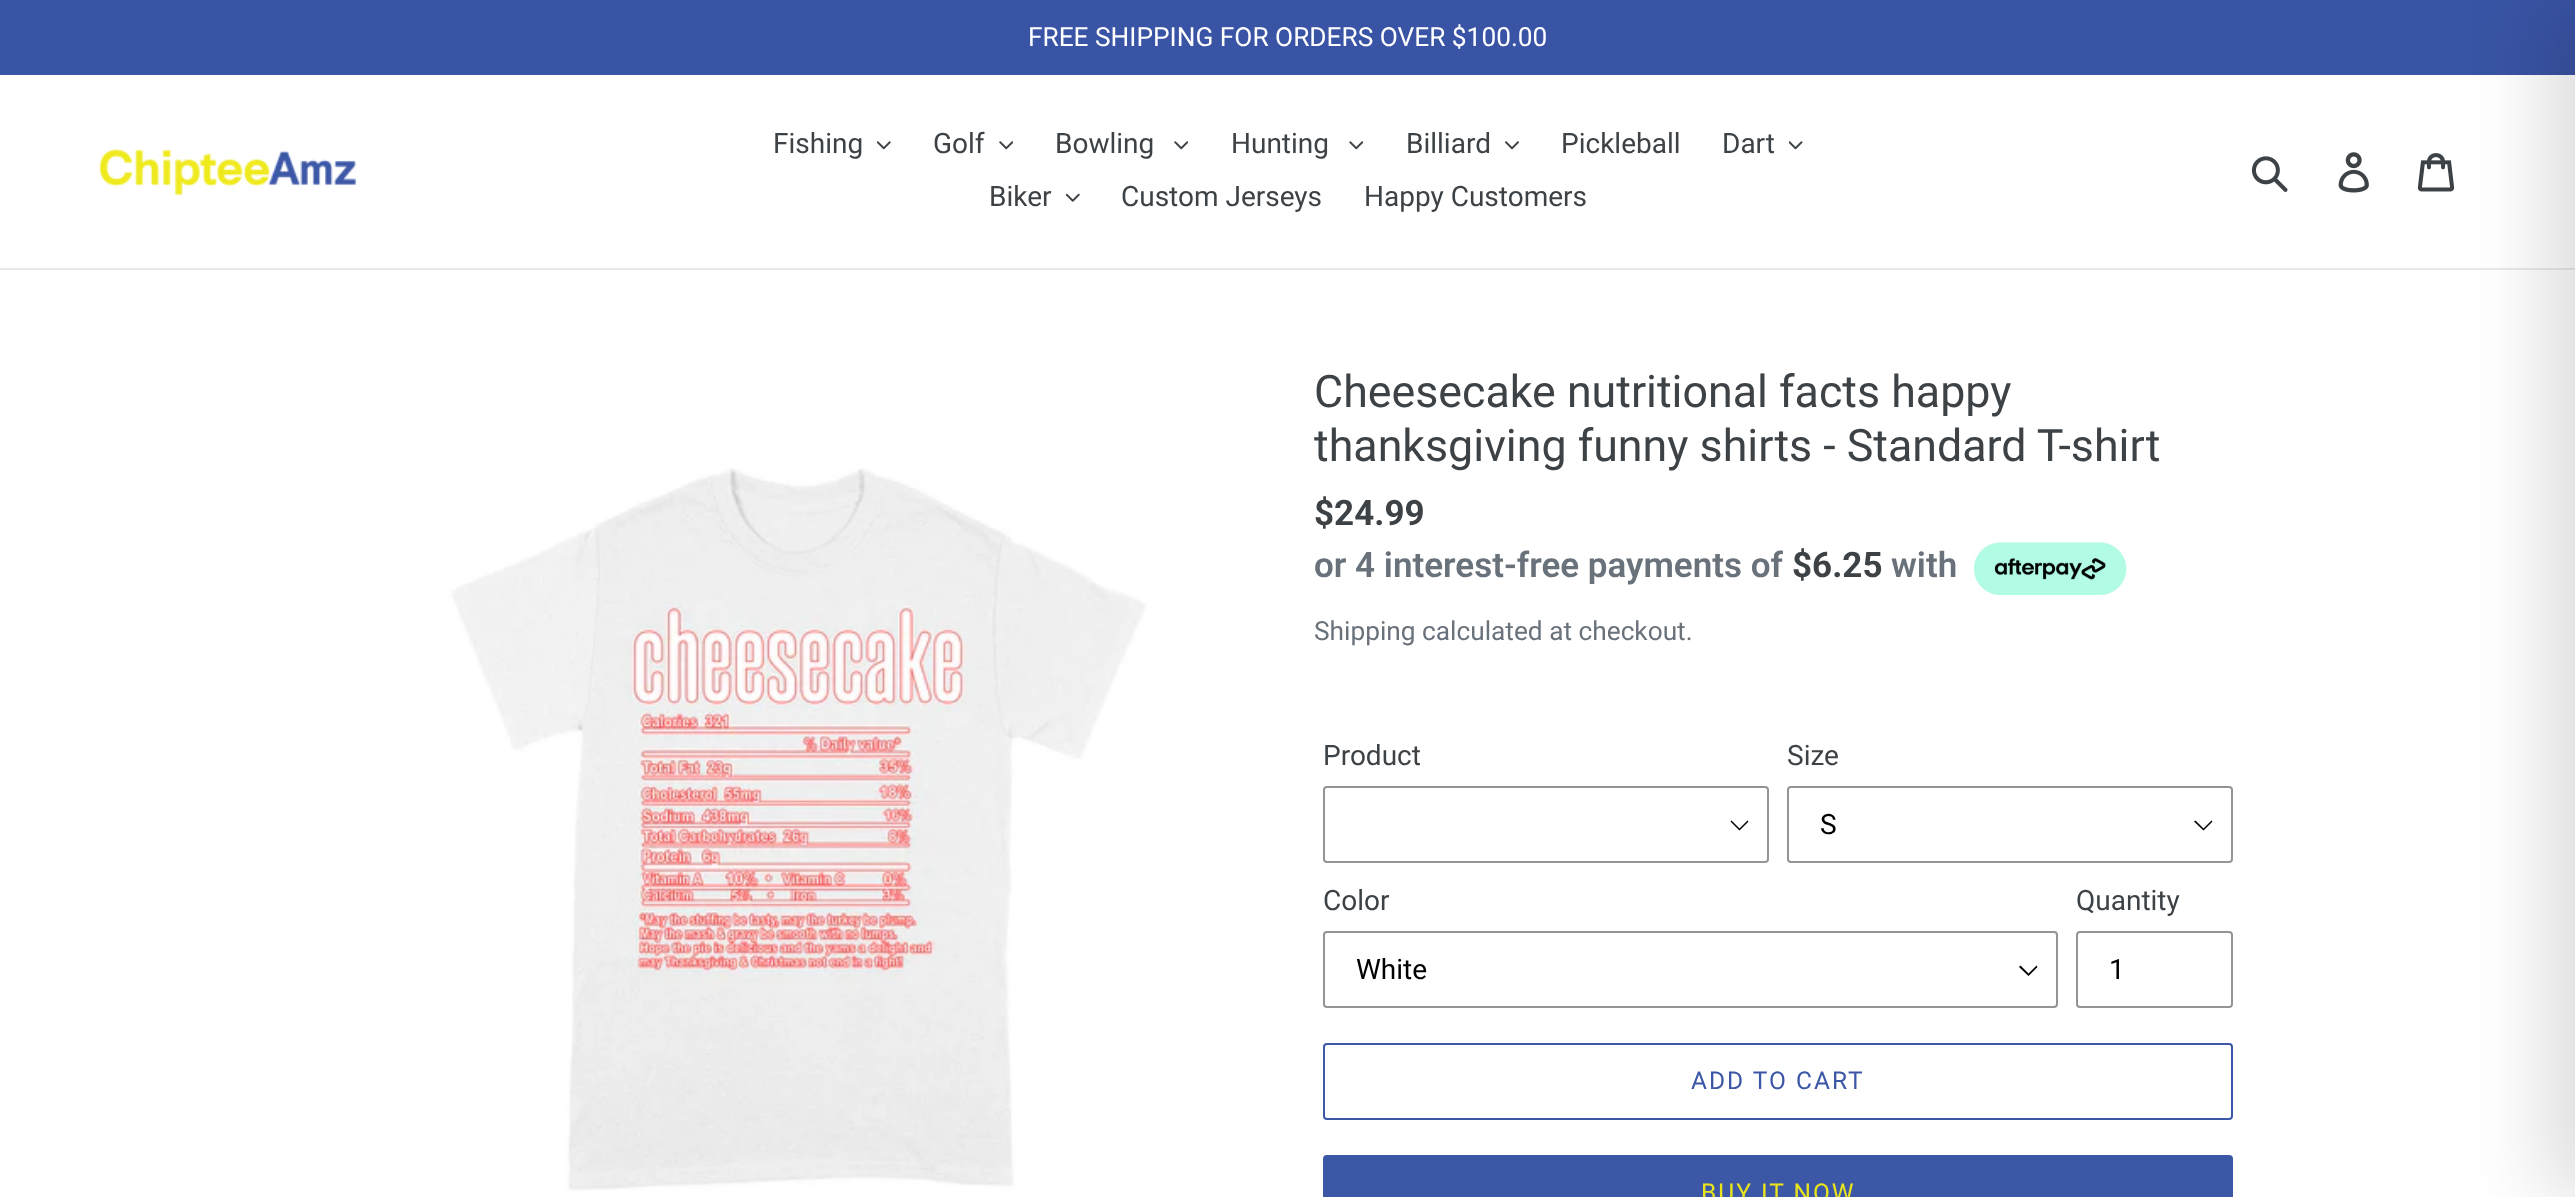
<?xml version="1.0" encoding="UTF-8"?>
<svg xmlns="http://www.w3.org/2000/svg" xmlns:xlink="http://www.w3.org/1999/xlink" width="2575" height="1197">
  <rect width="100%" height="100%" fill="#ffffff" />
  <rect width="2575" height="75" fill="#3a54a5" />
  <rect y="268" width="2575" height="2" fill="#e8e9eb" />
  <image x="2417" y="153" width="38" height="39" xlink:href="image9.png" />
  <rect x="2541" width="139" height="1197" fill="#000000" fill-opacity="0.12" filter="blur(35px)" />
  <image x="99" y="149" width="258" height="47" xlink:href="image1.png" />
  <image x="877" y="141" width="14" height="9" xlink:href="image2.png" />
  <image x="999" y="141" width="14" height="9" xlink:href="image3.png" />
  <image x="1174" y="141" width="14" height="9" xlink:href="image3.png" />
  <image x="1349" y="141" width="14" height="9" xlink:href="image3.png" />
  <image x="1505" y="141" width="14" height="9" xlink:href="image4.png" />
  <image x="1789" y="141" width="14" height="9" xlink:href="image5.png" />
  <image x="1066" y="193" width="14" height="9" xlink:href="image6.png" />
  <image x="2251" y="156" width="37" height="36" xlink:href="image7.png" />
  <image x="2338" y="152" width="31" height="41" xlink:href="image8.png" />
  <image x="450" y="468" width="697" height="723" xlink:href="image10.png" />
  <image x="1974" y="542" width="153" height="53" xlink:href="image11.png" />
  <path d="M 1739.5 830.5 l -9 -9 l 1 -1 l 8 8 l 8 -8 l 1 1 z" fill="#000000" />
  <rect x="1324" y="787" width="444" height="75" rx="3" fill="none" stroke="#949494" stroke-width="2" />
  <path d="M 2203.5 830.5 l -9.5 -9 l 1.5 -1 l 8 8 l 8 -8 l 1 1 z" fill="#000000" />
  <rect x="1788" y="787" width="444" height="75" rx="3" fill="none" stroke="#949494" stroke-width="2" />
  <path d="M 2028.5 976 l -9.5 -9 l 1.5 -1.5 l 8 8 l 8 -8 l 1 1.5 z" fill="#000000" />
  <rect x="1324" y="932" width="733" height="75" rx="3" fill="none" stroke="#949494" stroke-width="2" />
  <rect x="2077" y="932" width="155" height="75" rx="3" fill="none" stroke="#949494" stroke-width="2" />
  <rect x="1324" y="1044" width="908" height="75" rx="3" fill="none" stroke="#3d57a7" stroke-width="2" />
  <rect x="1323" y="1155" width="910" height="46" rx="4" fill="#3d57a7" />
  <text x="1028" y="46" style="font-family: Roboto; font-size: 26.25px; fill: #ffffff">FREE SHIPPING FOR ORDERS OVER $100.00</text>
  <text x="773" y="153" style="font-family: Roboto; font-size: 28px; fill: #3d4246">Fishing</text>
  <text x="933" y="153" style="font-family: Roboto; font-size: 28px; fill: #3d4246">Golf</text>
  <text x="1055" y="153" style="font-family: Roboto; font-size: 28px; fill: #3d4246">Bowling</text>
  <text x="1231" y="153" style="font-family: Roboto; font-size: 28px; fill: #3d4246">Hunting</text>
  <text x="1406" y="153" style="font-family: Roboto; font-size: 28px; fill: #3d4246">Billiard</text>
  <text x="1561" y="153" style="font-family: Roboto; font-size: 28px; fill: #3d4246">Pickleball</text>
  <text x="1722" y="153" style="font-family: Roboto; font-size: 28px; fill: #3d4246">Dart</text>
  <text x="989" y="206" style="font-family: Roboto; font-size: 28px; fill: #3d4246">Biker</text>
  <text x="1121" y="206" style="font-family: Roboto; font-size: 28px; fill: #3d4246">Custom Jerseys</text>
  <text x="1364" y="206" style="font-family: Roboto; font-size: 28px; fill: #3d4246">Happy Customers</text>
  <text x="1314" y="407" style="font-family: Roboto; font-size: 44.75px; fill: #3d4246">Cheesecake nutritional facts happy</text>
  <text x="1314" y="461" style="font-family: Roboto; font-size: 44.75px; fill: #3d4246">thanksgiving funny shirts - Standard T-shirt</text>
  <text x="1314" y="525" style="font-family: Roboto; font-size: 35px; font-weight: bold; fill: #3d4246">$24.99</text>
  <text x="1314" y="577" style="font-family: Roboto; font-size: 35px; font-weight: 600; fill: #69727b">or 4 interest-free payments of</text>
  <text x="1792" y="577" style="font-family: Roboto; font-size: 35px; font-weight: bold; fill: #3d4246">$6.25</text>
  <text x="1891" y="577" style="font-family: Roboto; font-size: 35px; font-weight: 600; fill: #69727b">with</text>
  <text x="1314" y="640" style="font-family: Roboto; font-size: 26.25px; fill: #69727b">Shipping calculated at checkout.</text>
  <text x="1323" y="765" style="font-family: Roboto; font-size: 28px; fill: #3d4246">Product</text>
  <text x="1787" y="765" style="font-family: Roboto; font-size: 28px; fill: #3d4246">Size</text>
  <text x="1820" y="834" style="font-family: Roboto; font-size: 28px; fill: #000000">S</text>
  <text x="1323" y="910" style="font-family: Roboto; font-size: 28px; fill: #3d4246">Color</text>
  <text x="1356" y="979" style="font-family: Roboto; font-size: 28px; fill: #000000">White</text>
  <text x="2076" y="910" style="font-family: Roboto; font-size: 28px; fill: #3d4246">Quantity</text>
  <text x="2109" y="979" style="font-family: Roboto; font-size: 28px; fill: #000000">1</text>
  <text x="1691" y="1089" style="font-family: Roboto; font-size: 24.5px; letter-spacing: 2px; fill: #3d57a7">ADD TO CART</text>
  <text x="1701" y="1201" style="font-family: Roboto; font-size: 24.5px; letter-spacing: 2px; fill: #eae51b">BUY IT NOW</text>
</svg>
